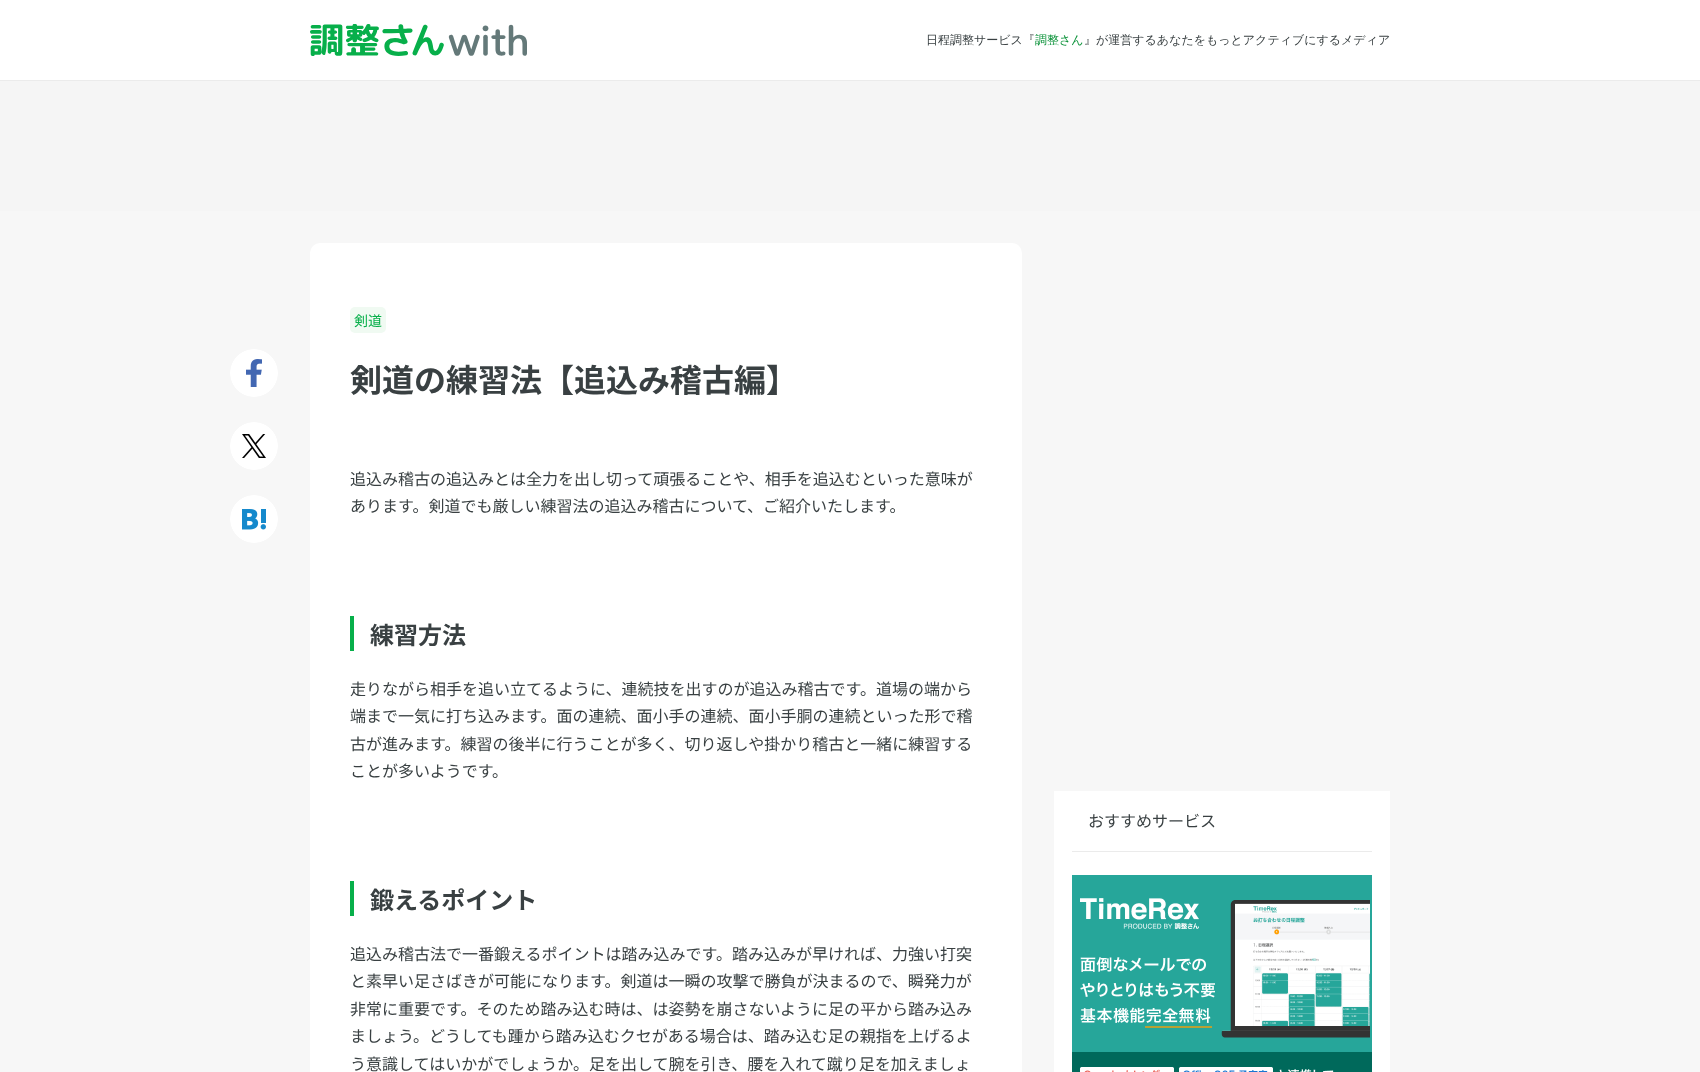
<?xml version="1.0" encoding="UTF-8"?>
<svg xmlns="http://www.w3.org/2000/svg" xmlns:xlink="http://www.w3.org/1999/xlink" width="1700" height="1072">
  <rect width="100%" height="100%" fill="#ffffff" />
  <rect y="80" width="1700" height="1" fill="#ebebeb" />
  <image x="310" y="24" width="217" height="32" xlink:href="image1.png" />
  <rect y="81" width="1700" height="130" fill="#f5f5f5" />
  <rect y="211" width="1700" height="861" fill="#f7f7f7" />
  <image x="230" y="349" width="48" height="48" xlink:href="image2.png" />
  <image x="230" y="422" width="48" height="48" xlink:href="image3.png" />
  <image x="230" y="495" width="48" height="48" xlink:href="image4.png" />
  <rect x="310" y="243" width="712" height="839" rx="10" fill="#ffffff" />
  <rect x="350" y="307" width="36" height="26" rx="5" fill="#f0faf2" />
  <rect x="350" y="616" width="4" height="35" fill="#07af4a" />
  <rect x="350" y="881" width="4" height="35" fill="#07af4a" />
  <rect x="1054" y="791" width="336" height="281" fill="#ffffff" />
  <rect x="1072" y="851" width="300" height="1" fill="#ebebeb" />
  <image x="1072" y="875" width="300" height="197" xlink:href="image5.png" />
  <text x="926" y="44" style="font-family: WenQuanYi Zen Hei; font-size: 12px; font-weight: 500; fill: #394042">日程調整サービス『</text>
  <text x="1035" y="44" style="font-family: WenQuanYi Zen Hei; font-size: 12px; font-weight: 500; fill: #0b9239">調整さん</text>
  <text x="1084" y="44" style="font-family: WenQuanYi Zen Hei; font-size: 12px; font-weight: 500; fill: #394042">』が運営するあなたをもっとアクティブにするメディア</text>
  <text x="354" y="326" style="font-family: Noto Sans JP; font-size: 14px; fill: #07af4a">剣道</text>
  <text x="350" y="392" style="font-family: Noto Sans JP; font-size: 32px; font-weight: bold; fill: #394042">剣道の練習法【追込み稽古編】</text>
  <text x="350" y="485" style="font-family: Noto Sans JP; font-size: 16px; fill: #394042">追込み稽古の追込みとは全力を出し切って頑張ることや、相手を追込むといった意味が</text>
  <text x="350" y="512" style="font-family: Noto Sans JP; font-size: 16px; fill: #394042">あります。剣道でも厳しい練習法の追込み稽古について、ご紹介いたします。</text>
  <text x="370" y="644" style="font-family: Noto Sans JP; font-size: 24px; font-weight: bold; fill: #394042">練習方法</text>
  <text x="350" y="695" style="font-family: Noto Sans JP; font-size: 16px; fill: #394042">走りながら相手を追い立てるように、連続技を出すのが追込み稽古です。道場の端から</text>
  <text x="350" y="722" style="font-family: Noto Sans JP; font-size: 16px; fill: #394042">端まで一気に打ち込みます。面の連続、面小手の連続、面小手胴の連続といった形で稽</text>
  <text x="350" y="750" style="font-family: Noto Sans JP; font-size: 16px; fill: #394042">古が進みます。練習の後半に行うことが多く、切り返しや掛かり稽古と一緒に練習する</text>
  <text x="350" y="777" style="font-family: Noto Sans JP; font-size: 16px; fill: #394042">ことが多いようです。</text>
  <text x="370" y="909" style="font-family: Noto Sans JP; font-size: 24px; font-weight: bold; fill: #394042">鍛えるポイント</text>
  <text x="350" y="960" style="font-family: Noto Sans JP; font-size: 16px; fill: #394042">追込み稽古法で一番鍛えるポイントは踏み込みです。踏み込みが早ければ、力強い打突</text>
  <text x="350" y="987" style="font-family: Noto Sans JP; font-size: 16px; fill: #394042">と素早い足さばきが可能になります。剣道は一瞬の攻撃で勝負が決まるので、瞬発力が</text>
  <text x="350" y="1015" style="font-family: Noto Sans JP; font-size: 16px; fill: #394042">非常に重要です。そのため踏み込む時は、は姿勢を崩さないように足の平から踏み込み</text>
  <text x="350" y="1042" style="font-family: Noto Sans JP; font-size: 16px; fill: #394042">ましょう。どうしても踵から踏み込むクセがある場合は、踏み込む足の親指を上げるよ</text>
  <text x="350" y="1070" style="font-family: Noto Sans JP; font-size: 16px; fill: #394042">う意識してはいかがでしょうか。足を出して腕を引き、腰を入れて蹴り足を加えましょ</text>
  <text x="1088" y="827" style="font-family: Noto Sans JP; font-size: 16px; fill: #394042">おすすめサービス</text>
</svg>
